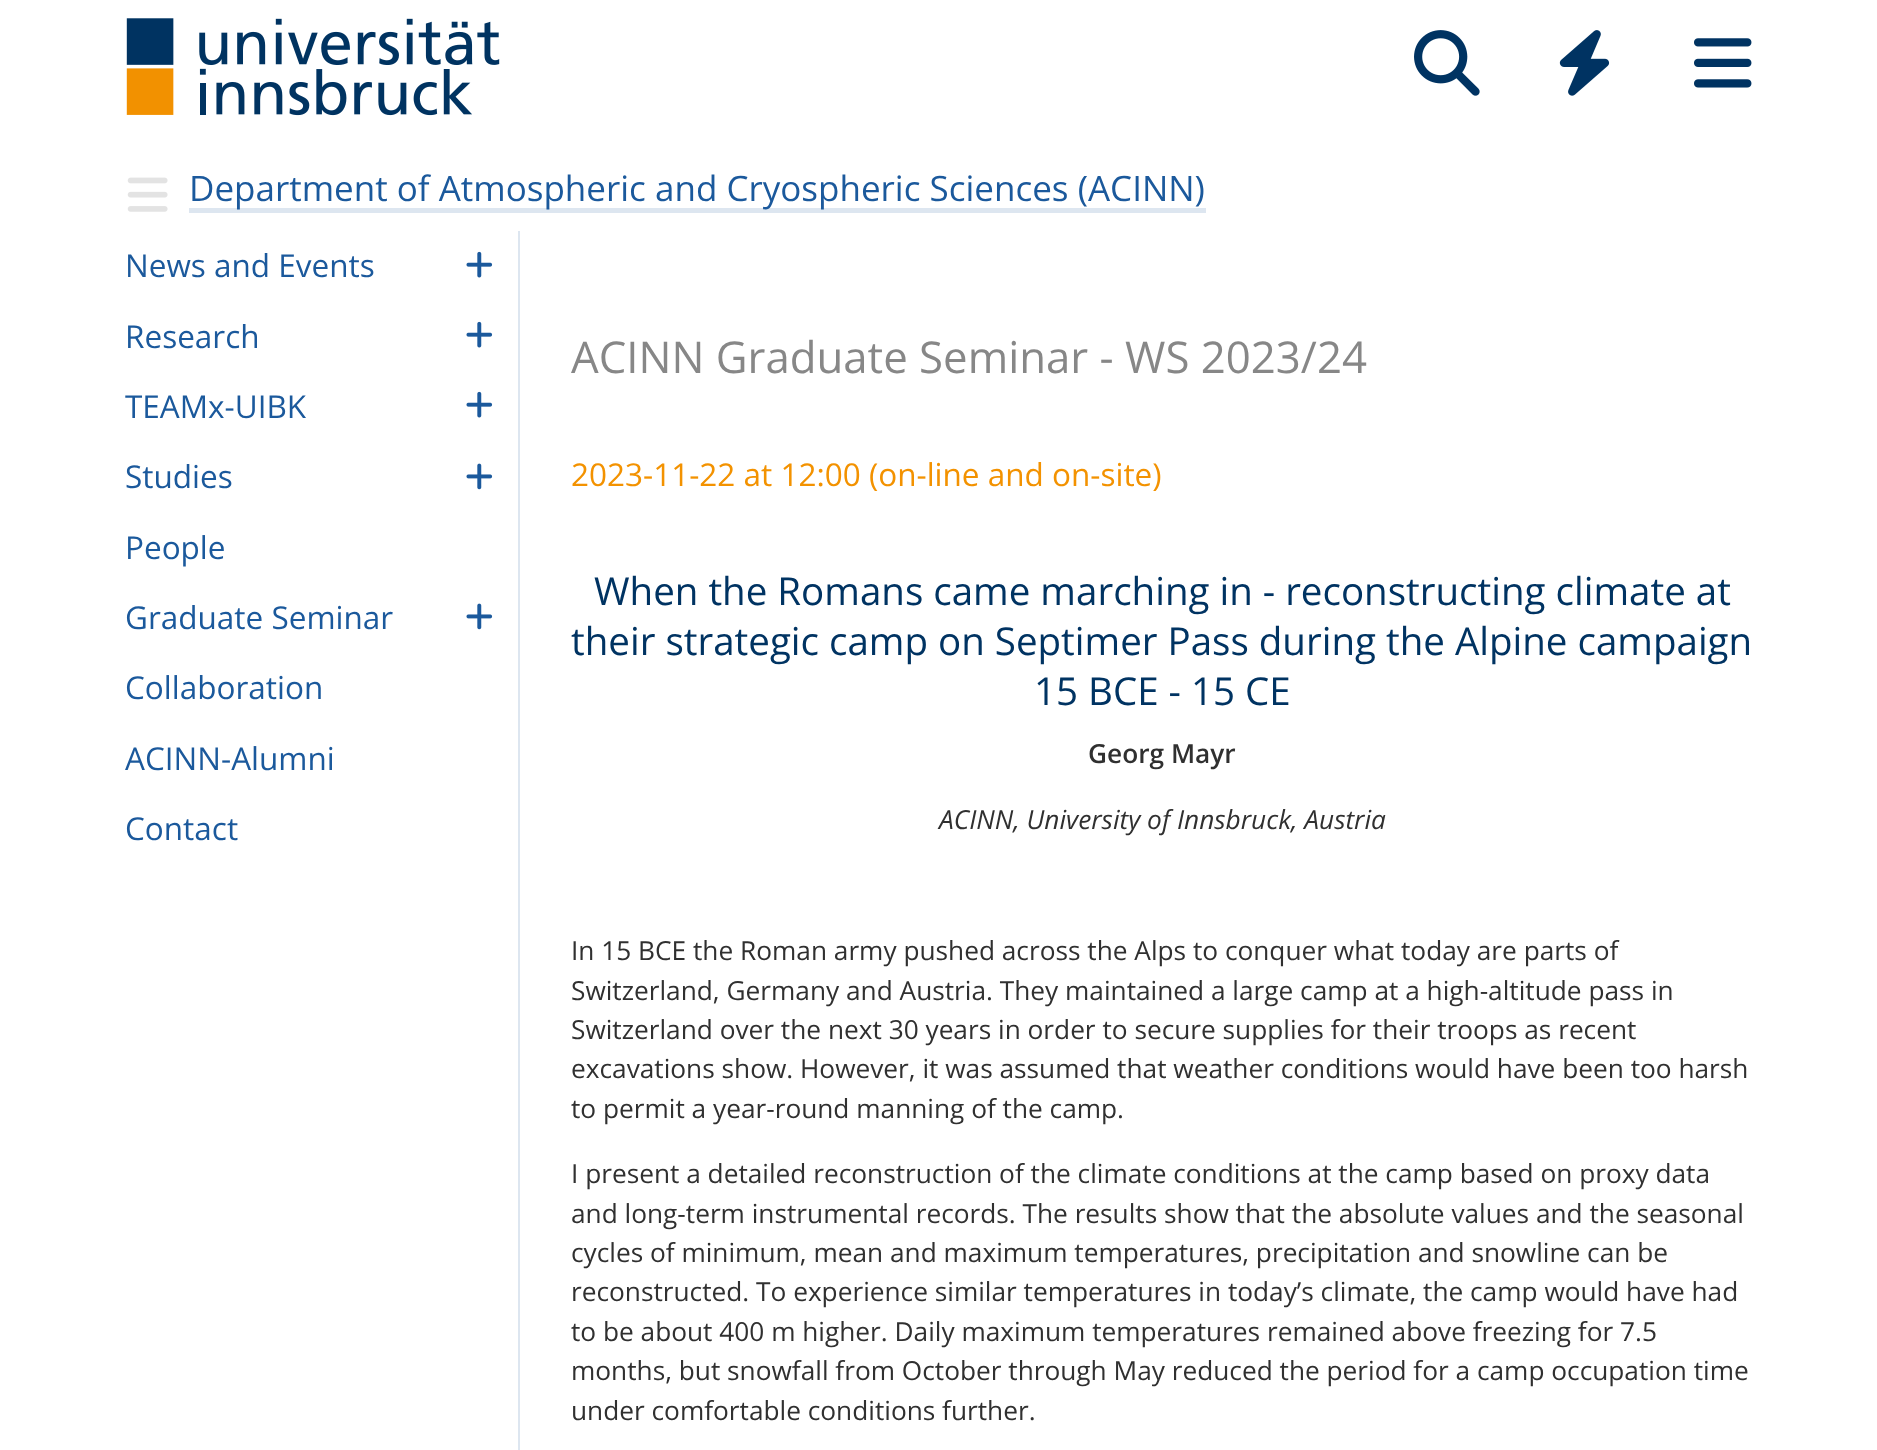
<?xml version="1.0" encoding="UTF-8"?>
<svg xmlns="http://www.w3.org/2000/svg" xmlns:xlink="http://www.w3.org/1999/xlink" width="1877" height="1450">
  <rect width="100%" height="100%" fill="#ffffff" />
  <image x="126" y="18" width="374" height="98" xlink:href="image1.png" />
  <image x="1414" y="30" width="66" height="66" xlink:href="image2.png" />
  <image x="1559" y="30" width="51" height="66" xlink:href="image3.png" />
  <image x="1694" y="38" width="58" height="50" xlink:href="image4.png" />
  <image x="127" y="177" width="41" height="35" xlink:href="image5.png" />
  <rect x="189" y="208" width="1017" height="5" fill="#dde6f0" />
  <rect x="518" y="231" width="2" height="1219" fill="#dde6f0" />
  <image x="466" y="251" width="27" height="27" xlink:href="image6.png" />
  <image x="466" y="321" width="27" height="27" xlink:href="image6.png" />
  <image x="466" y="391" width="27" height="27" xlink:href="image6.png" />
  <image x="466" y="463" width="27" height="27" xlink:href="image7.png" />
  <image x="466" y="603" width="27" height="27" xlink:href="image7.png" />
  <text x="189" y="201" style="font-family: Open Sans; font-size: 35px; fill: #1b599c">Department of Atmospheric and Cryospheric Sciences (ACINN)</text>
  <text x="125" y="277" style="font-family: Open Sans; font-size: 31.5px; fill: #1b599c">News and Events</text>
  <text x="125" y="348" style="font-family: Open Sans; font-size: 31.5px; fill: #1b599c">Research</text>
  <text x="125" y="418" style="font-family: Open Sans; font-size: 31.5px; fill: #1b599c">TEAMx-UIBK</text>
  <text x="125" y="488" style="font-family: Open Sans; font-size: 31.5px; fill: #1b599c">Studies</text>
  <text x="125" y="559" style="font-family: Open Sans; font-size: 31.5px; fill: #1b599c">People</text>
  <text x="125" y="629" style="font-family: Open Sans; font-size: 31.5px; fill: #1b599c">Graduate Seminar</text>
  <text x="125" y="699" style="font-family: Open Sans; font-size: 31.5px; fill: #1b599c">Collaboration</text>
  <text x="125" y="770" style="font-family: Open Sans; font-size: 31.5px; fill: #1b599c">ACINN-Alumni</text>
  <text x="125" y="840" style="font-family: Open Sans; font-size: 31.5px; fill: #1b599c">Contact</text>
  <text x="571" y="373" style="font-family: Open Sans; font-size: 43.75px; fill: #878787">ACINN Graduate Seminar - WS 2023/24</text>
  <text x="571" y="486" style="font-family: Open Sans; font-size: 31.5px; fill: #f39200">2023-11-22 at 12:00 (on-line and on-site)</text>
  <text x="594" y="605" style="font-family: Open Sans; font-size: 38.5px; fill: #003362">When the Romans came marching in - reconstructing climate at</text>
  <text x="571" y="655" style="font-family: Open Sans; font-size: 38.5px; fill: #003362">their strategic camp on Septimer Pass during the Alpine campaign</text>
  <text x="1034" y="705" style="font-family: Open Sans; font-size: 38.5px; fill: #003362">15 BCE - 15 CE</text>
  <text x="1088" y="763" style="font-family: Open Sans; font-size: 26.25px; font-weight: 600; fill: #303030">Georg Mayr</text>
  <text x="939" y="829" style="font-family: Open Sans; font-size: 26.25px; font-style: italic; fill: #303030">ACINN, University of Innsbruck, Austria</text>
  <text x="571" y="960" style="font-family: Open Sans; font-size: 26.25px; fill: #303030">In 15 BCE the Roman army pushed across the Alps to conquer what today are parts of</text>
  <text x="571" y="1000" style="font-family: Open Sans; font-size: 26.25px; fill: #303030">Switzerland, Germany and Austria. They maintained a large camp at a high-altitude pass in</text>
  <text x="571" y="1039" style="font-family: Open Sans; font-size: 26.25px; fill: #303030">Switzerland over the next 30 years in order to secure supplies for their troops as recent</text>
  <text x="571" y="1078" style="font-family: Open Sans; font-size: 26.25px; fill: #303030">excavations show. However, it was assumed that weather conditions would have been too harsh</text>
  <text x="571" y="1118" style="font-family: Open Sans; font-size: 26.25px; fill: #303030">to permit a year-round manning of the camp.</text>
  <text x="571" y="1183" style="font-family: Open Sans; font-size: 26.25px; fill: #303030">I present a detailed reconstruction of the climate conditions at the camp based on proxy data</text>
  <text x="571" y="1223" style="font-family: Open Sans; font-size: 26.25px; fill: #303030">and long-term instrumental records. The results show that the absolute values and the seasonal</text>
  <text x="571" y="1262" style="font-family: Open Sans; font-size: 26.25px; fill: #303030">cycles of minimum, mean and maximum temperatures, precipitation and snowline can be</text>
  <text x="571" y="1301" style="font-family: Open Sans; font-size: 26.25px; fill: #303030">reconstructed. To experience similar temperatures in today’s climate, the camp would have had</text>
  <text x="571" y="1341" style="font-family: Open Sans; font-size: 26.25px; fill: #303030">to be about 400 m higher. Daily maximum temperatures remained above freezing for 7.5</text>
  <text x="571" y="1380" style="font-family: Open Sans; font-size: 26.25px; fill: #303030">months, but snowfall from October through May reduced the period for a camp occupation time</text>
  <text x="571" y="1420" style="font-family: Open Sans; font-size: 26.25px; fill: #303030">under comfortable conditions further.</text>
</svg>
